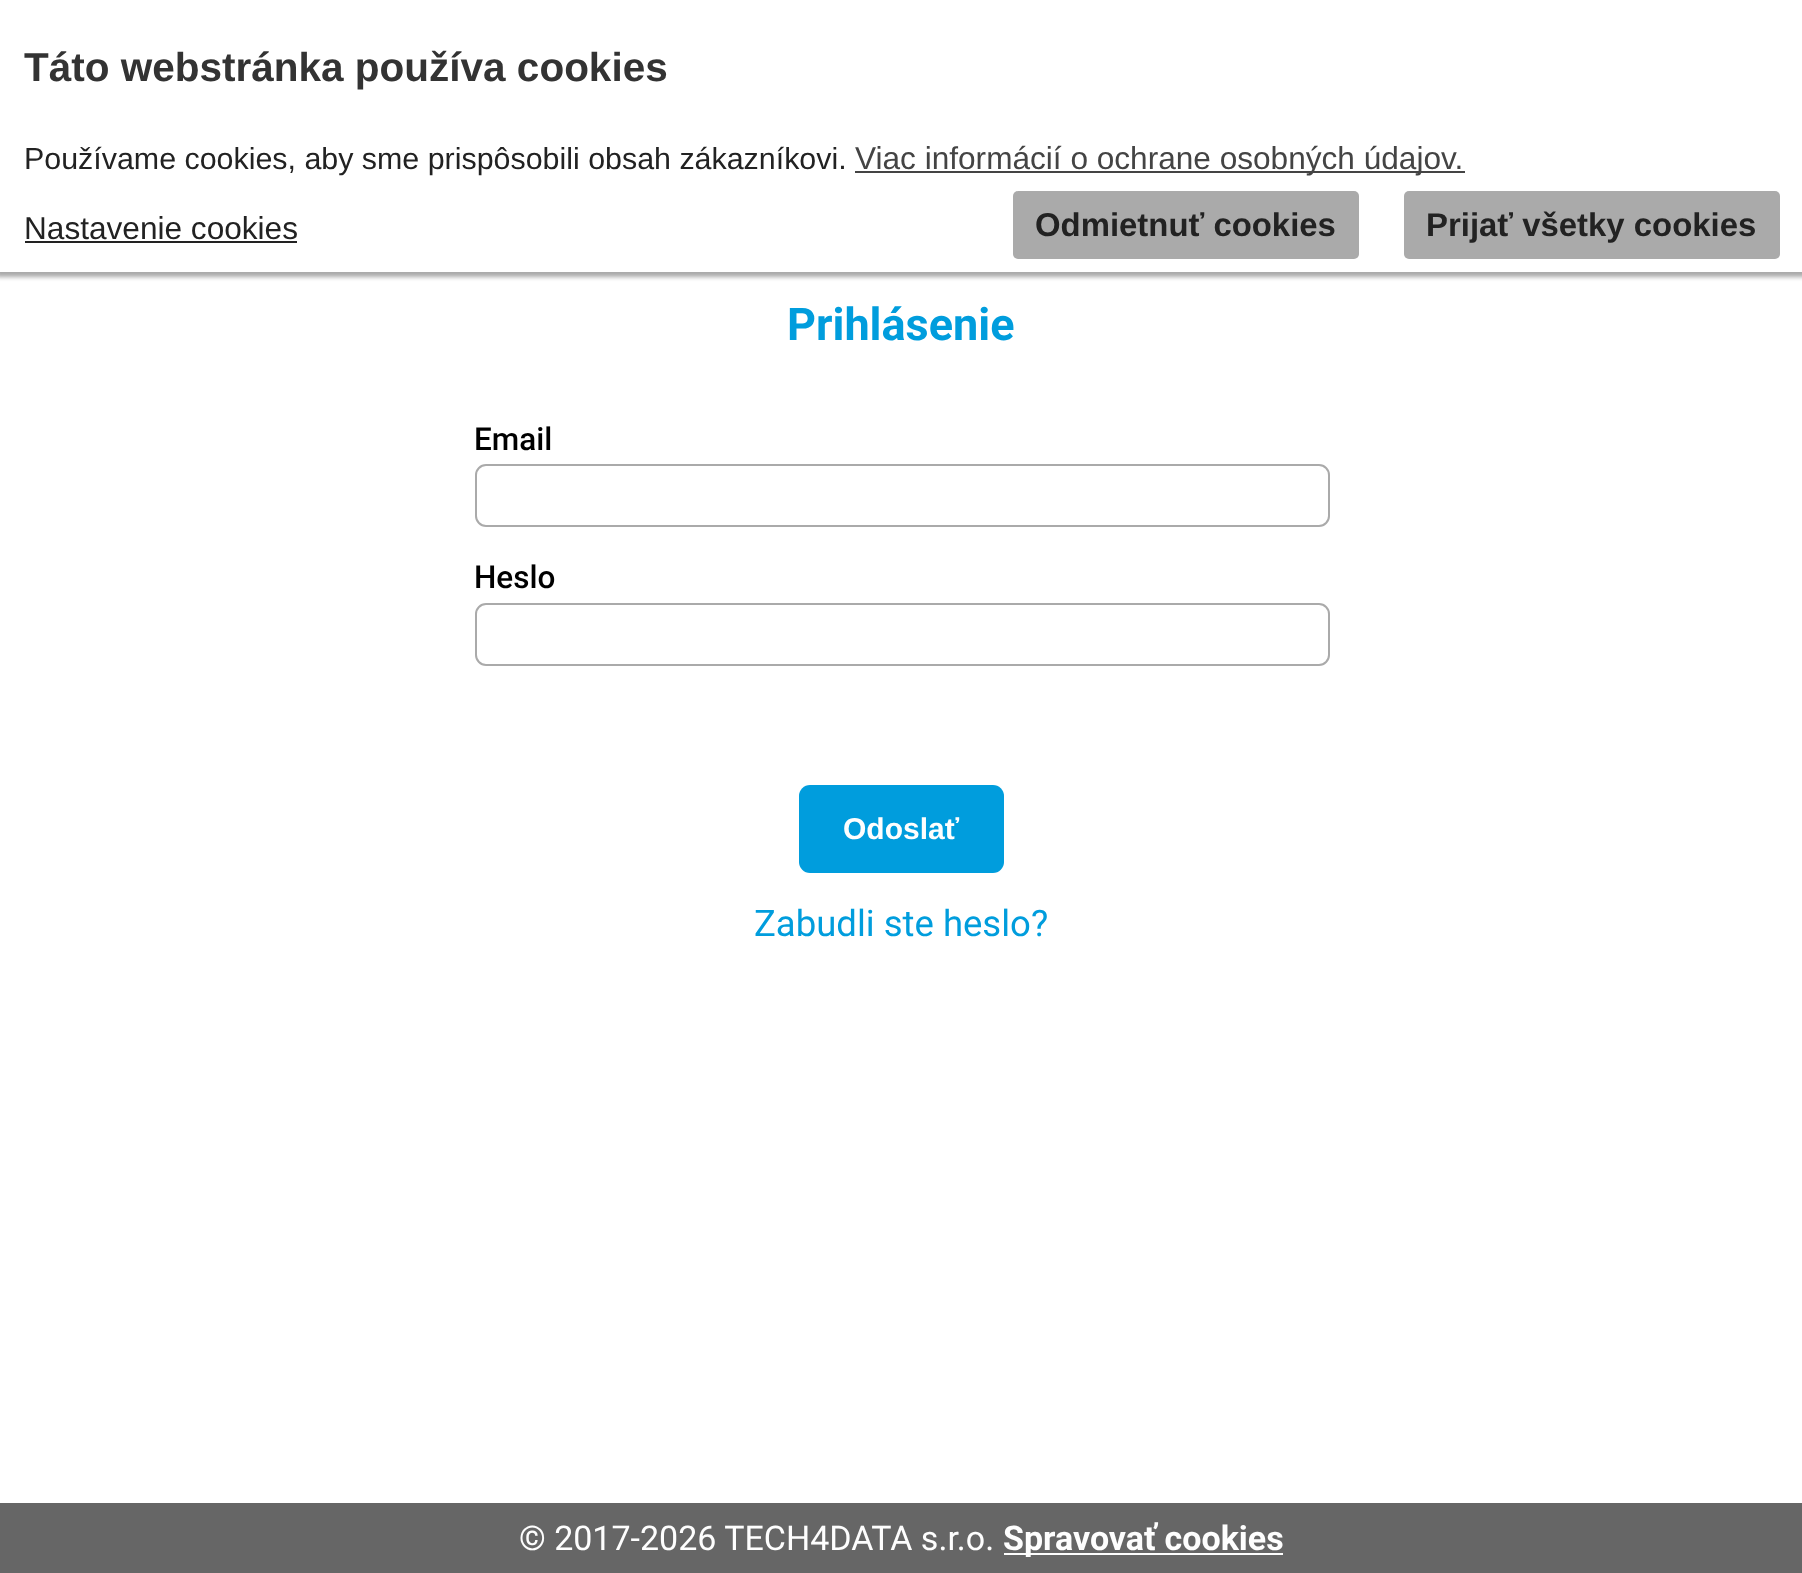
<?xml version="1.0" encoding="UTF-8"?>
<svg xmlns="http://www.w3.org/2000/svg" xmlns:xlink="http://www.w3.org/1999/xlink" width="1802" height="1573">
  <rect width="100%" height="100%" fill="#ffffff" />
  <rect x="-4" y="-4" width="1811" height="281" fill="#aaaaaa" filter="blur(2px)" />
  <rect width="1802" height="272" fill="#ffffff" />
  <rect x="855" y="171" width="610" height="2" fill="#444444" />
  <rect x="25" y="241" width="272" height="2" fill="#222222" />
  <rect x="1013" y="191" width="346" height="68" rx="5" fill="#aaaaaa" />
  <rect x="1404" y="191" width="376" height="68" rx="5" fill="#aaaaaa" />
  <rect x="476" y="465" width="853" height="61" rx="10" fill="none" stroke="#aaaaaa" stroke-width="2" />
  <rect x="476" y="604" width="853" height="61" rx="10" fill="none" stroke="#aaaaaa" stroke-width="2" />
  <rect x="799" y="785" width="205" height="88" rx="11" fill="#009ddd" />
  <rect y="1503" width="1802" height="70" fill="#666666" />
  <rect x="1004" y="1553" width="279" height="2" fill="#fefefe" />
  <text x="24" y="81" style="font-family: Liberation Sans; font-size: 40.5px; font-weight: bold; fill: #333333">Táto webstránka používa cookies</text>
  <text x="24" y="169" style="font-family: Liberation Sans; font-size: 30.4px; fill: #222222">Používame cookies, aby sme prispôsobili obsah zákazníkovi.</text>
  <text x="855" y="169" style="font-family: Liberation Sans; font-size: 31.6px; fill: #444444">Viac informácií o ochrane osobných údajov.</text>
  <text x="24" y="239" style="font-family: Liberation Sans; font-size: 31.6px; fill: #222222">Nastavenie cookies</text>
  <text x="1035" y="236" style="font-family: Liberation Sans; font-size: 32.9px; font-weight: bold; fill: #222222">Odmietnuť cookies</text>
  <text x="1426" y="236" style="font-family: Liberation Sans; font-size: 32.9px; font-weight: bold; fill: #222222">Prijať všetky cookies</text>
  <text x="787" y="340" style="font-family: Roboto; font-size: 45px; font-weight: bold; fill: #009ddd">Prihlásenie</text>
  <text x="474" y="450" style="font-family: Roboto; font-size: 31.5px; font-weight: 500; fill: #000000">Email</text>
  <text x="474" y="588" style="font-family: Roboto; font-size: 31.5px; font-weight: 500; fill: #000000">Heslo</text>
  <text x="843" y="839" style="font-family: Liberation Sans; font-size: 30px; font-weight: bold; fill: #fefefe">Odoslať</text>
  <text x="754" y="936" style="font-family: Roboto; font-size: 36.5px; fill: #009ddd">Zabudli ste heslo?</text>
  <text x="519" y="1550" style="font-family: Roboto; font-size: 34px; fill: #fefefe">© 2017-2026 TECH4DATA s.r.o.</text>
  <text x="1003" y="1550" style="font-family: Roboto; font-size: 34px; font-weight: bold; fill: #fefefe">Spravovať cookies</text>
</svg>
